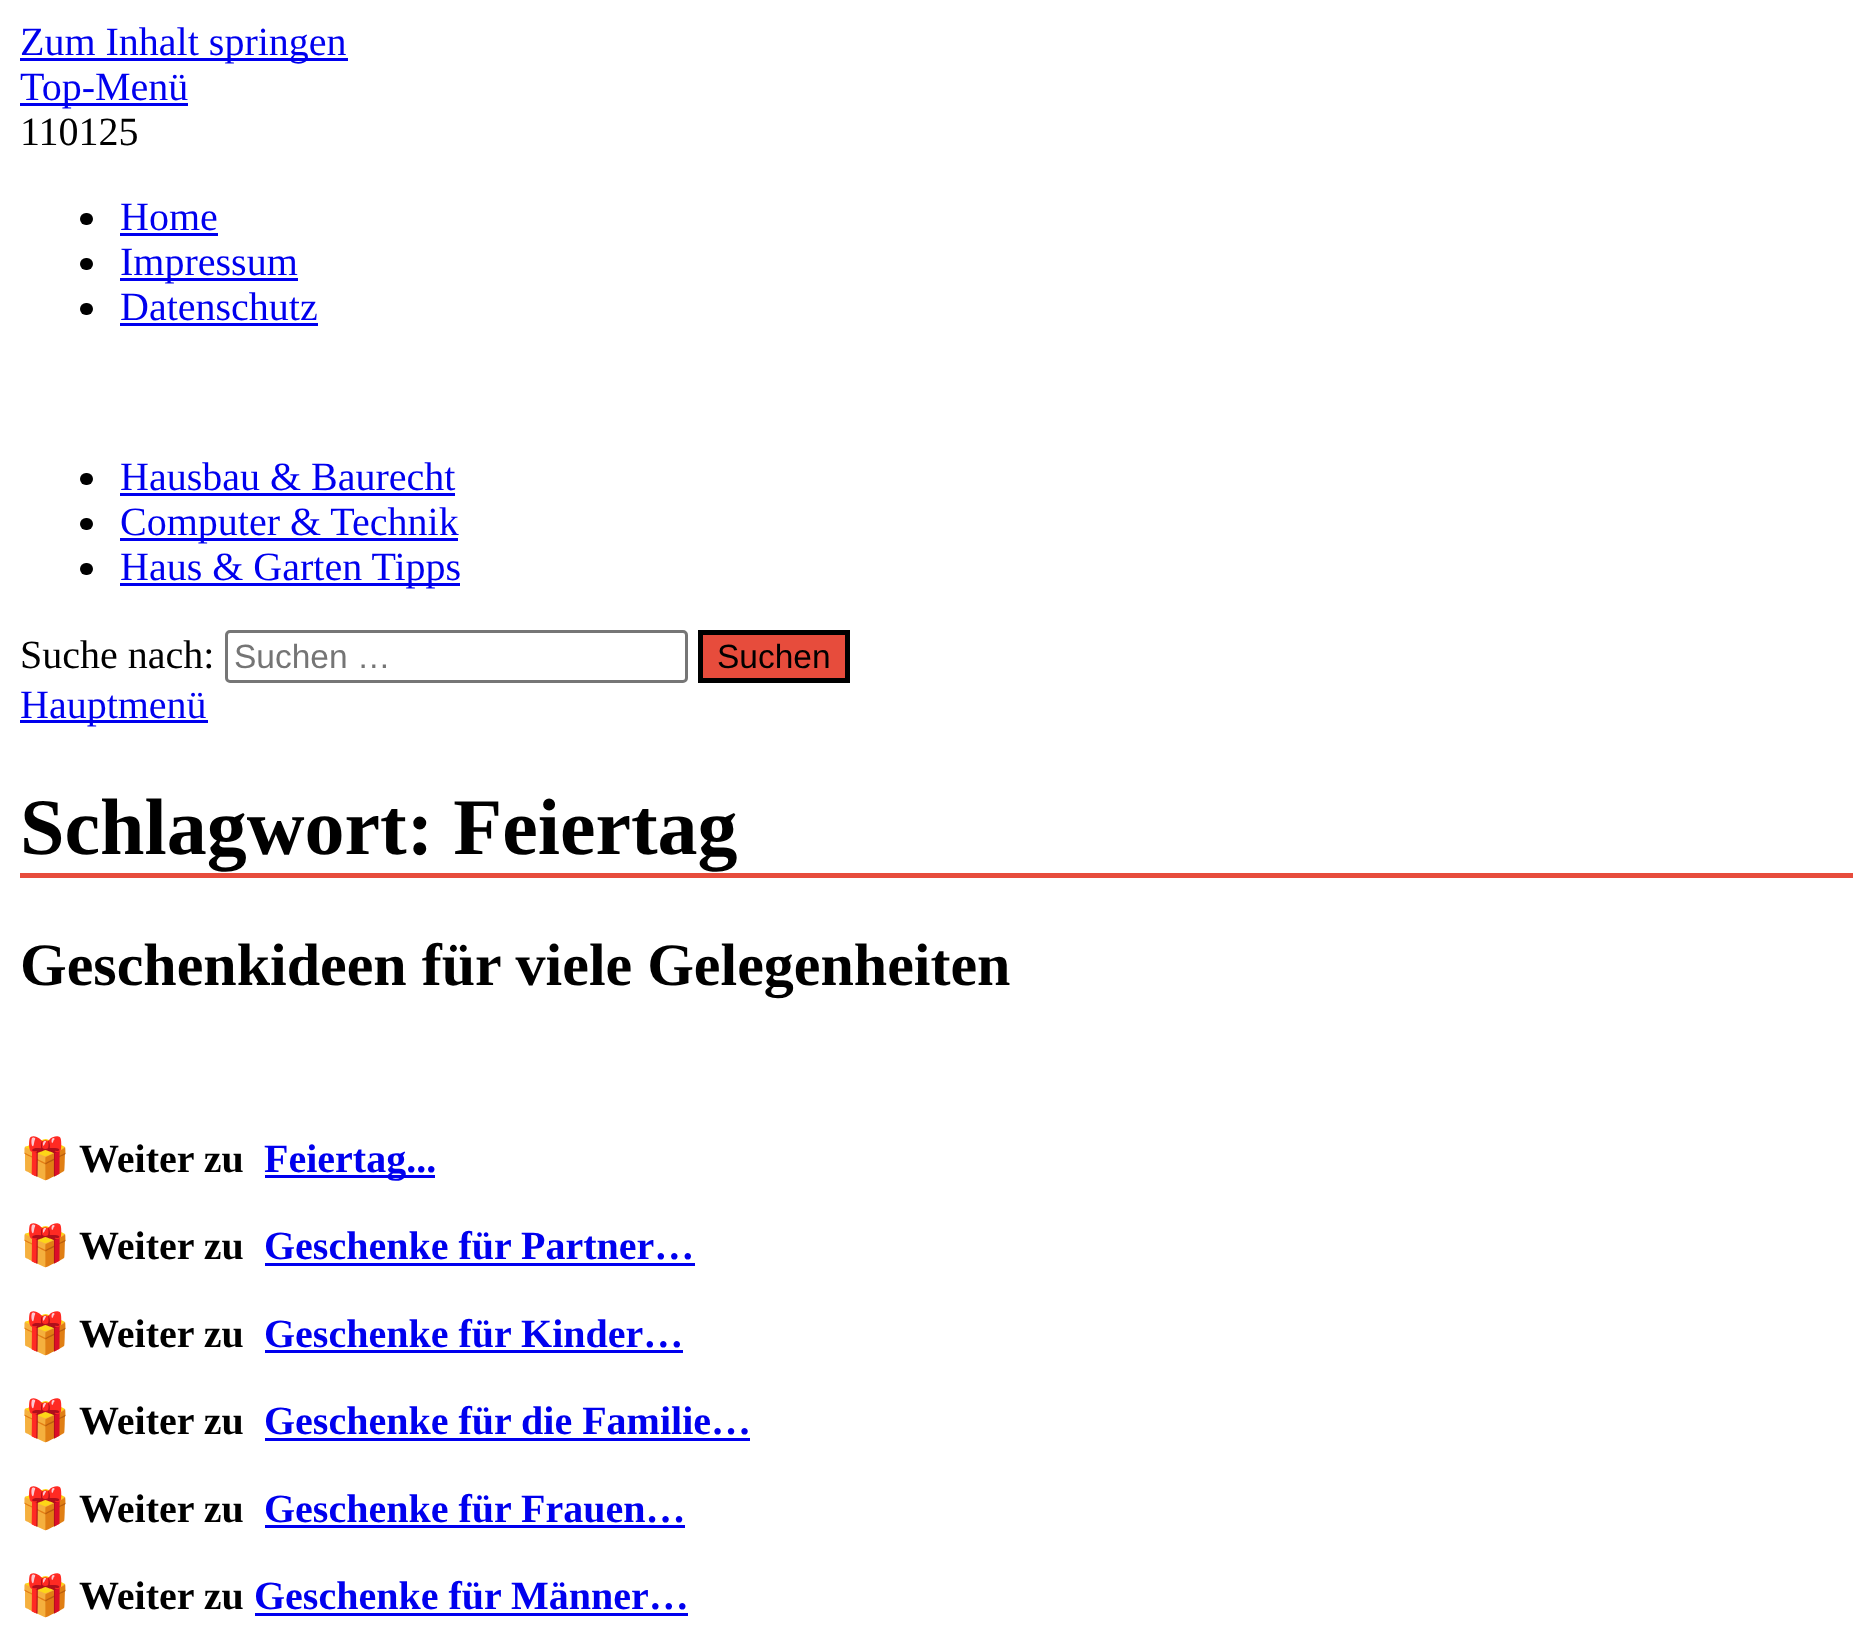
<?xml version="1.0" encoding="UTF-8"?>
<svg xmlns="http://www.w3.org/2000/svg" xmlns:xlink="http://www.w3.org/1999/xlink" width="1872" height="1641">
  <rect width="100%" height="100%" fill="#ffffff" />
  <rect x="20" y="58" width="328" height="3" fill="#0000ee" />
  <rect x="20" y="103" width="168" height="3" fill="#0000ee" />
  <rect x="80" y="213" width="13" height="12" rx="6" fill="#000000" />
  <rect x="120" y="233" width="98" height="3" fill="#0000ee" />
  <rect x="80" y="258" width="13" height="12" rx="6" fill="#000000" />
  <rect x="120" y="278" width="178" height="3" fill="#0000ee" />
  <rect x="80" y="303" width="13" height="12" rx="6" fill="#000000" />
  <rect x="120" y="323" width="198" height="3" fill="#0000ee" />
  <rect x="80" y="473" width="13" height="12" rx="6" fill="#000000" />
  <rect x="120" y="493" width="335" height="3" fill="#0000ee" />
  <rect x="80" y="518" width="13" height="12" rx="6" fill="#000000" />
  <rect x="120" y="538" width="338" height="3" fill="#0000ee" />
  <rect x="80" y="563" width="13" height="12" rx="6" fill="#000000" />
  <rect x="120" y="583" width="340" height="3" fill="#0000ee" />
  <rect x="226.5" y="631.5" width="460" height="50" rx="3.5" fill="none" stroke="#767676" stroke-width="3" />
  <rect x="700.5" y="632.5" width="147" height="48" fill="#e74c3c" stroke="#000000" stroke-width="5" />
  <rect x="20" y="720" width="188" height="3" fill="#0000ee" />
  <rect x="20" y="873" width="1833" height="5" fill="#e74c3c" />
  <rect x="265" y="1175" width="170" height="3" fill="#0000ee" />
  <rect x="265" y="1263" width="430" height="3" fill="#0000ee" />
  <rect x="265" y="1350" width="418" height="3" fill="#0000ee" />
  <rect x="265" y="1438" width="485" height="3" fill="#0000ee" />
  <rect x="265" y="1525" width="420" height="3" fill="#0000ee" />
  <rect x="255" y="1613" width="433" height="3" fill="#0000ee" />
  <text x="20" y="55" style="font-family: Liberation Serif; font-size: 40px; fill: #0000ee">Zum Inhalt springen</text>
  <text x="20" y="100" style="font-family: Liberation Serif; font-size: 40px; fill: #0000ee">Top-Menü</text>
  <text x="20" y="145" style="font-family: Liberation Serif; font-size: 40px; fill: #000000">110125</text>
  <text x="120" y="230" style="font-family: Liberation Serif; font-size: 40px; fill: #0000ee">Home</text>
  <text x="120" y="275" style="font-family: Liberation Serif; font-size: 40px; fill: #0000ee">Impressum</text>
  <text x="120" y="320" style="font-family: Liberation Serif; font-size: 40px; fill: #0000ee">Datenschutz</text>
  <text x="120" y="490" style="font-family: Liberation Serif; font-size: 40px; fill: #0000ee">Hausbau &amp; Baurecht</text>
  <text x="120" y="535" style="font-family: Liberation Serif; font-size: 40px; fill: #0000ee">Computer &amp; Technik</text>
  <text x="120" y="580" style="font-family: Liberation Serif; font-size: 40px; fill: #0000ee">Haus &amp; Garten Tipps</text>
  <text x="20" y="668" style="font-family: Liberation Serif; font-size: 40px; fill: #000000">Suche nach:</text>
  <text x="234" y="668" style="font-family: Liberation Sans; font-size: 33.5px; fill: #757575">Suchen …</text>
  <text x="717" y="668" style="font-family: Liberation Sans; font-size: 33.5px; fill: #000000">Suchen</text>
  <text x="20" y="718" style="font-family: Liberation Serif; font-size: 40px; fill: #0000ee">Hauptmenü</text>
  <text x="20" y="854" style="font-family: Liberation Serif; font-size: 80px; font-weight: bold; fill: #000000">Schlagwort: Feiertag</text>
  <text x="20" y="985" style="font-family: Liberation Serif; font-size: 60px; font-weight: bold; fill: #000000">Geschenkideen für viele Gelegenheiten</text>
  <text x="20" y="1172" style="font-family: Noto Color Emoji; font-size: 40px; font-weight: bold; fill: #000000">🎁</text>
  <text x="79" y="1172" style="font-family: Liberation Serif; font-size: 40px; font-weight: bold; fill: #000000">Weiter zu</text>
  <text x="264" y="1172" style="font-family: Liberation Serif; font-size: 40px; font-weight: bold; fill: #0000ee">Feiertag...</text>
  <text x="20" y="1259" style="font-family: Noto Color Emoji; font-size: 40px; font-weight: bold; fill: #000000">🎁</text>
  <text x="79" y="1259" style="font-family: Liberation Serif; font-size: 40px; font-weight: bold; fill: #000000">Weiter zu</text>
  <text x="264" y="1259" style="font-family: Liberation Serif; font-size: 40px; font-weight: bold; fill: #0000ee">Geschenke für Partner…</text>
  <text x="20" y="1347" style="font-family: Noto Color Emoji; font-size: 40px; font-weight: bold; fill: #000000">🎁</text>
  <text x="79" y="1347" style="font-family: Liberation Serif; font-size: 40px; font-weight: bold; fill: #000000">Weiter zu</text>
  <text x="264" y="1347" style="font-family: Liberation Serif; font-size: 40px; font-weight: bold; fill: #0000ee">Geschenke für Kinder…</text>
  <text x="20" y="1434" style="font-family: Noto Color Emoji; font-size: 40px; font-weight: bold; fill: #000000">🎁</text>
  <text x="79" y="1434" style="font-family: Liberation Serif; font-size: 40px; font-weight: bold; fill: #000000">Weiter zu</text>
  <text x="264" y="1434" style="font-family: Liberation Serif; font-size: 40px; font-weight: bold; fill: #0000ee">Geschenke für die Familie…</text>
  <text x="20" y="1522" style="font-family: Noto Color Emoji; font-size: 40px; font-weight: bold; fill: #000000">🎁</text>
  <text x="79" y="1522" style="font-family: Liberation Serif; font-size: 40px; font-weight: bold; fill: #000000">Weiter zu</text>
  <text x="264" y="1522" style="font-family: Liberation Serif; font-size: 40px; font-weight: bold; fill: #0000ee">Geschenke für Frauen…</text>
  <text x="20" y="1609" style="font-family: Noto Color Emoji; font-size: 40px; font-weight: bold; fill: #000000">🎁</text>
  <text x="79" y="1609" style="font-family: Liberation Serif; font-size: 40px; font-weight: bold; fill: #000000">Weiter zu</text>
  <text x="254" y="1609" style="font-family: Liberation Serif; font-size: 40px; font-weight: bold; fill: #0000ee">Geschenke für Männer…</text>
</svg>
